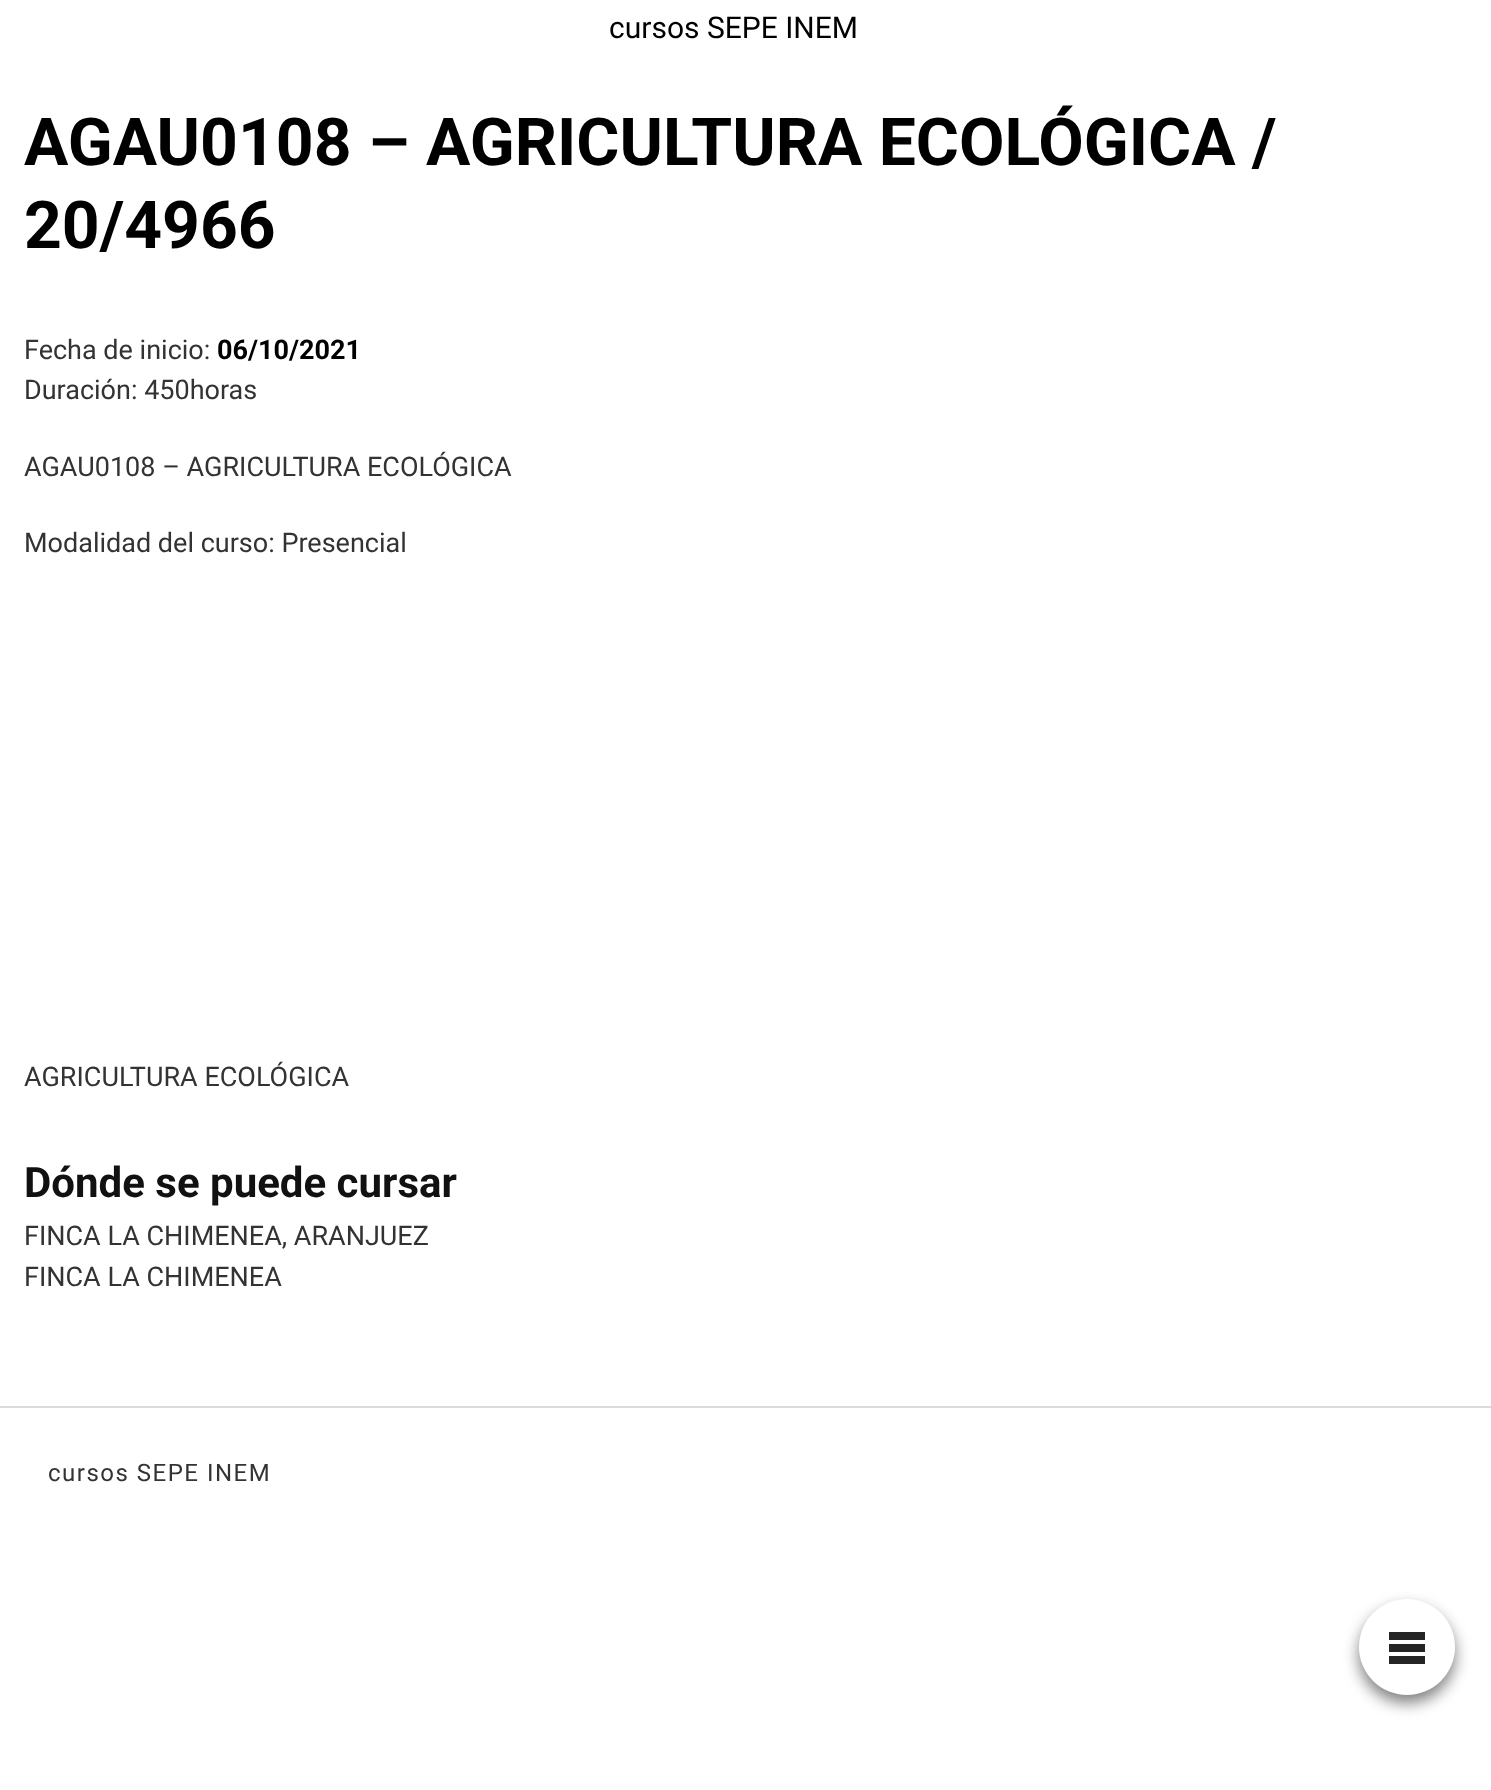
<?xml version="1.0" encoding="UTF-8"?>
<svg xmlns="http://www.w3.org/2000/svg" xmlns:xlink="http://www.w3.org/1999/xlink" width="1491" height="1790">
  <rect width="100%" height="100%" fill="#ffffff" />
  <rect x="1359" y="1607" width="96" height="96" rx="48" fill="#000000" fill-opacity="0.5" filter="blur(7.5px)" />
  <circle cx="1407" cy="1647" r="48" fill="#ffffff" />
  <rect x="1389" y="1644" width="36" height="8" fill="#252525" />
  <rect x="1389" y="1632" width="36" height="8" fill="#252525" />
  <rect x="1389" y="1656" width="36" height="8" fill="#252525" />
  <rect y="1406" width="1491" height="2" fill="#dbdbdb" />
  <text x="609" y="38" style="font-family: Roboto; font-size: 30px; fill: #000000">cursos SEPE INEM</text>
  <text x="24" y="165" style="font-family: Roboto; font-size: 66px; font-weight: bold; fill: #000000">AGAU0108 – AGRICULTURA ECOLÓGICA /</text>
  <text x="24" y="248" style="font-family: Roboto; font-size: 66px; font-weight: bold; fill: #000000">20/4966</text>
  <text x="24" y="359" style="font-family: Roboto; font-size: 27px; fill: #333333">Fecha de inicio:</text>
  <text x="217" y="359" style="font-family: Roboto; font-size: 27px; font-weight: bold; fill: #000000">06/10/2021</text>
  <text x="24" y="399" style="font-family: Roboto; font-size: 27px; fill: #333333">Duración: 450horas</text>
  <text x="24" y="476" style="font-family: Roboto; font-size: 27px; fill: #333333">AGAU0108 – AGRICULTURA ECOLÓGICA</text>
  <text x="24" y="552" style="font-family: Roboto; font-size: 27px; fill: #333333">Modalidad del curso: Presencial</text>
  <text x="24" y="1086" style="font-family: Roboto; font-size: 27px; fill: #333333">AGRICULTURA ECOLÓGICA</text>
  <text x="24" y="1197" style="font-family: Roboto; font-size: 42px; font-weight: bold; fill: #111111">Dónde se puede cursar</text>
  <text x="24" y="1245" style="font-family: Roboto; font-size: 27px; fill: #333333">FINCA LA CHIMENEA, ARANJUEZ</text>
  <text x="24" y="1286" style="font-family: Roboto; font-size: 27px; fill: #333333">FINCA LA CHIMENEA</text>
  <text x="48" y="1481" style="font-family: Roboto; font-size: 24px; letter-spacing: 1.5px; fill: #333333">cursos SEPE INEM</text>
</svg>
